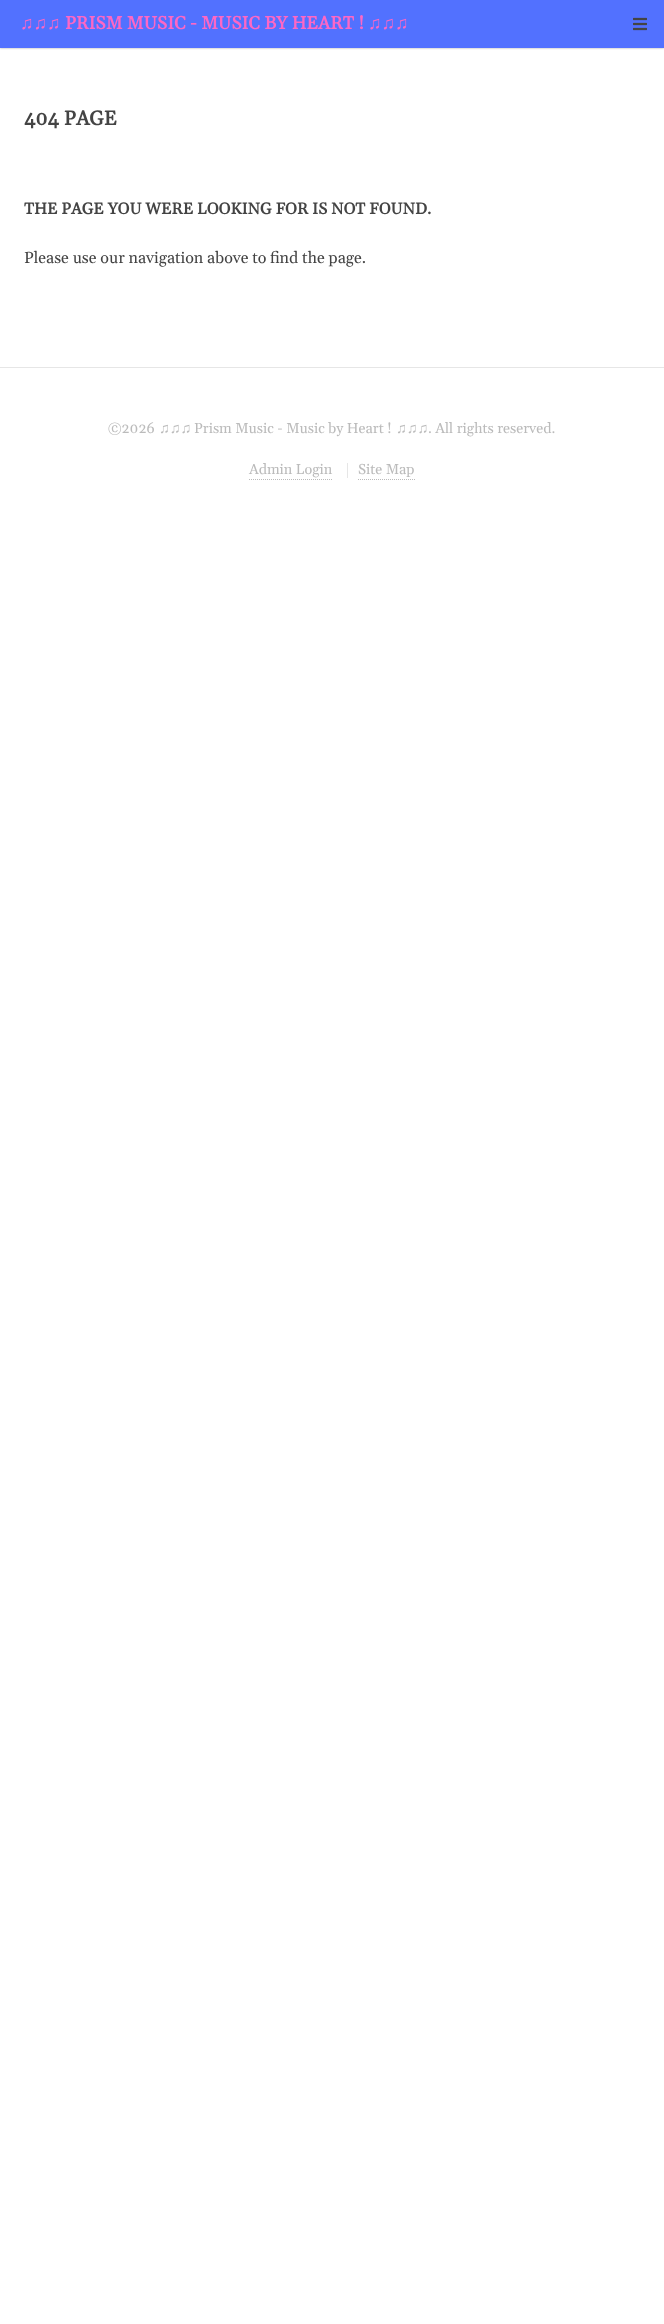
<?xml version="1.0" encoding="UTF-8"?>
<svg xmlns="http://www.w3.org/2000/svg" xmlns:xlink="http://www.w3.org/1999/xlink" width="664" height="2324">
  <rect width="100%" height="100%" fill="#ffffff" />
  <rect width="664" height="48" fill="#000000" fill-opacity="0.35" filter="blur(1px)" />
  <rect width="664" height="48" fill="#5271ff" />
  <image x="633" y="17" width="14" height="14" xlink:href="image1.png" />
  <rect y="367" width="664" height="1" fill="#e6e6e6" />
  <path d="M 249 479.5 h 83" fill="none" stroke="#bbbbbb" stroke-dasharray="1 1" />
  <rect x="347" y="463" width="1" height="15" fill="#e6e6e6" />
  <path d="M 358 479.5 h 57" fill="none" stroke="#bbbbbb" stroke-dasharray="1 1" />
  <text x="20" y="29" style="font-family: Liberation Serif; font-size: 18px; font-weight: bold; fill: #fd67c5">♫♫♫</text>
  <text x="65" y="29" style="font-family: Gelasio; font-size: 18px; font-weight: bold; fill: #fd67c5">PRISM MUSIC - MUSIC BY HEART !</text>
  <text x="368" y="29" style="font-family: Liberation Serif; font-size: 18px; font-weight: bold; fill: #fd67c5">♫♫♫</text>
  <text x="24" y="125" style="font-family: Gelasio; font-size: 20px; font-weight: bold; fill: #444444">404 PAGE</text>
  <text x="24" y="214" style="font-family: Gelasio; font-size: 16px; font-weight: bold; fill: #444444">THE PAGE YOU WERE LOOKING FOR IS NOT FOUND.</text>
  <text x="24" y="263" style="font-family: Gelasio; font-size: 16px; fill: #444444">Please use our navigation above to find the page.</text>
  <text x="108" y="433" style="font-family: Gelasio; font-size: 14.4px; fill: #bbbbbb">©2026</text>
  <text x="159" y="433" style="font-family: Liberation Serif; font-size: 14.4px; fill: #bbbbbb">♫♫♫</text>
  <text x="194" y="433" style="font-family: Gelasio; font-size: 14.4px; fill: #bbbbbb">Prism Music - Music by Heart !</text>
  <text x="396" y="433" style="font-family: Liberation Serif; font-size: 14.4px; fill: #bbbbbb">♫♫♫</text>
  <text x="428" y="433" style="font-family: Gelasio; font-size: 14.4px; fill: #bbbbbb">. All rights reserved.</text>
  <text x="249" y="474" style="font-family: Gelasio; font-size: 14.4px; fill: #bbbbbb">Admin Login</text>
  <text x="358" y="474" style="font-family: Gelasio; font-size: 14.4px; fill: #bbbbbb">Site Map</text>
</svg>
